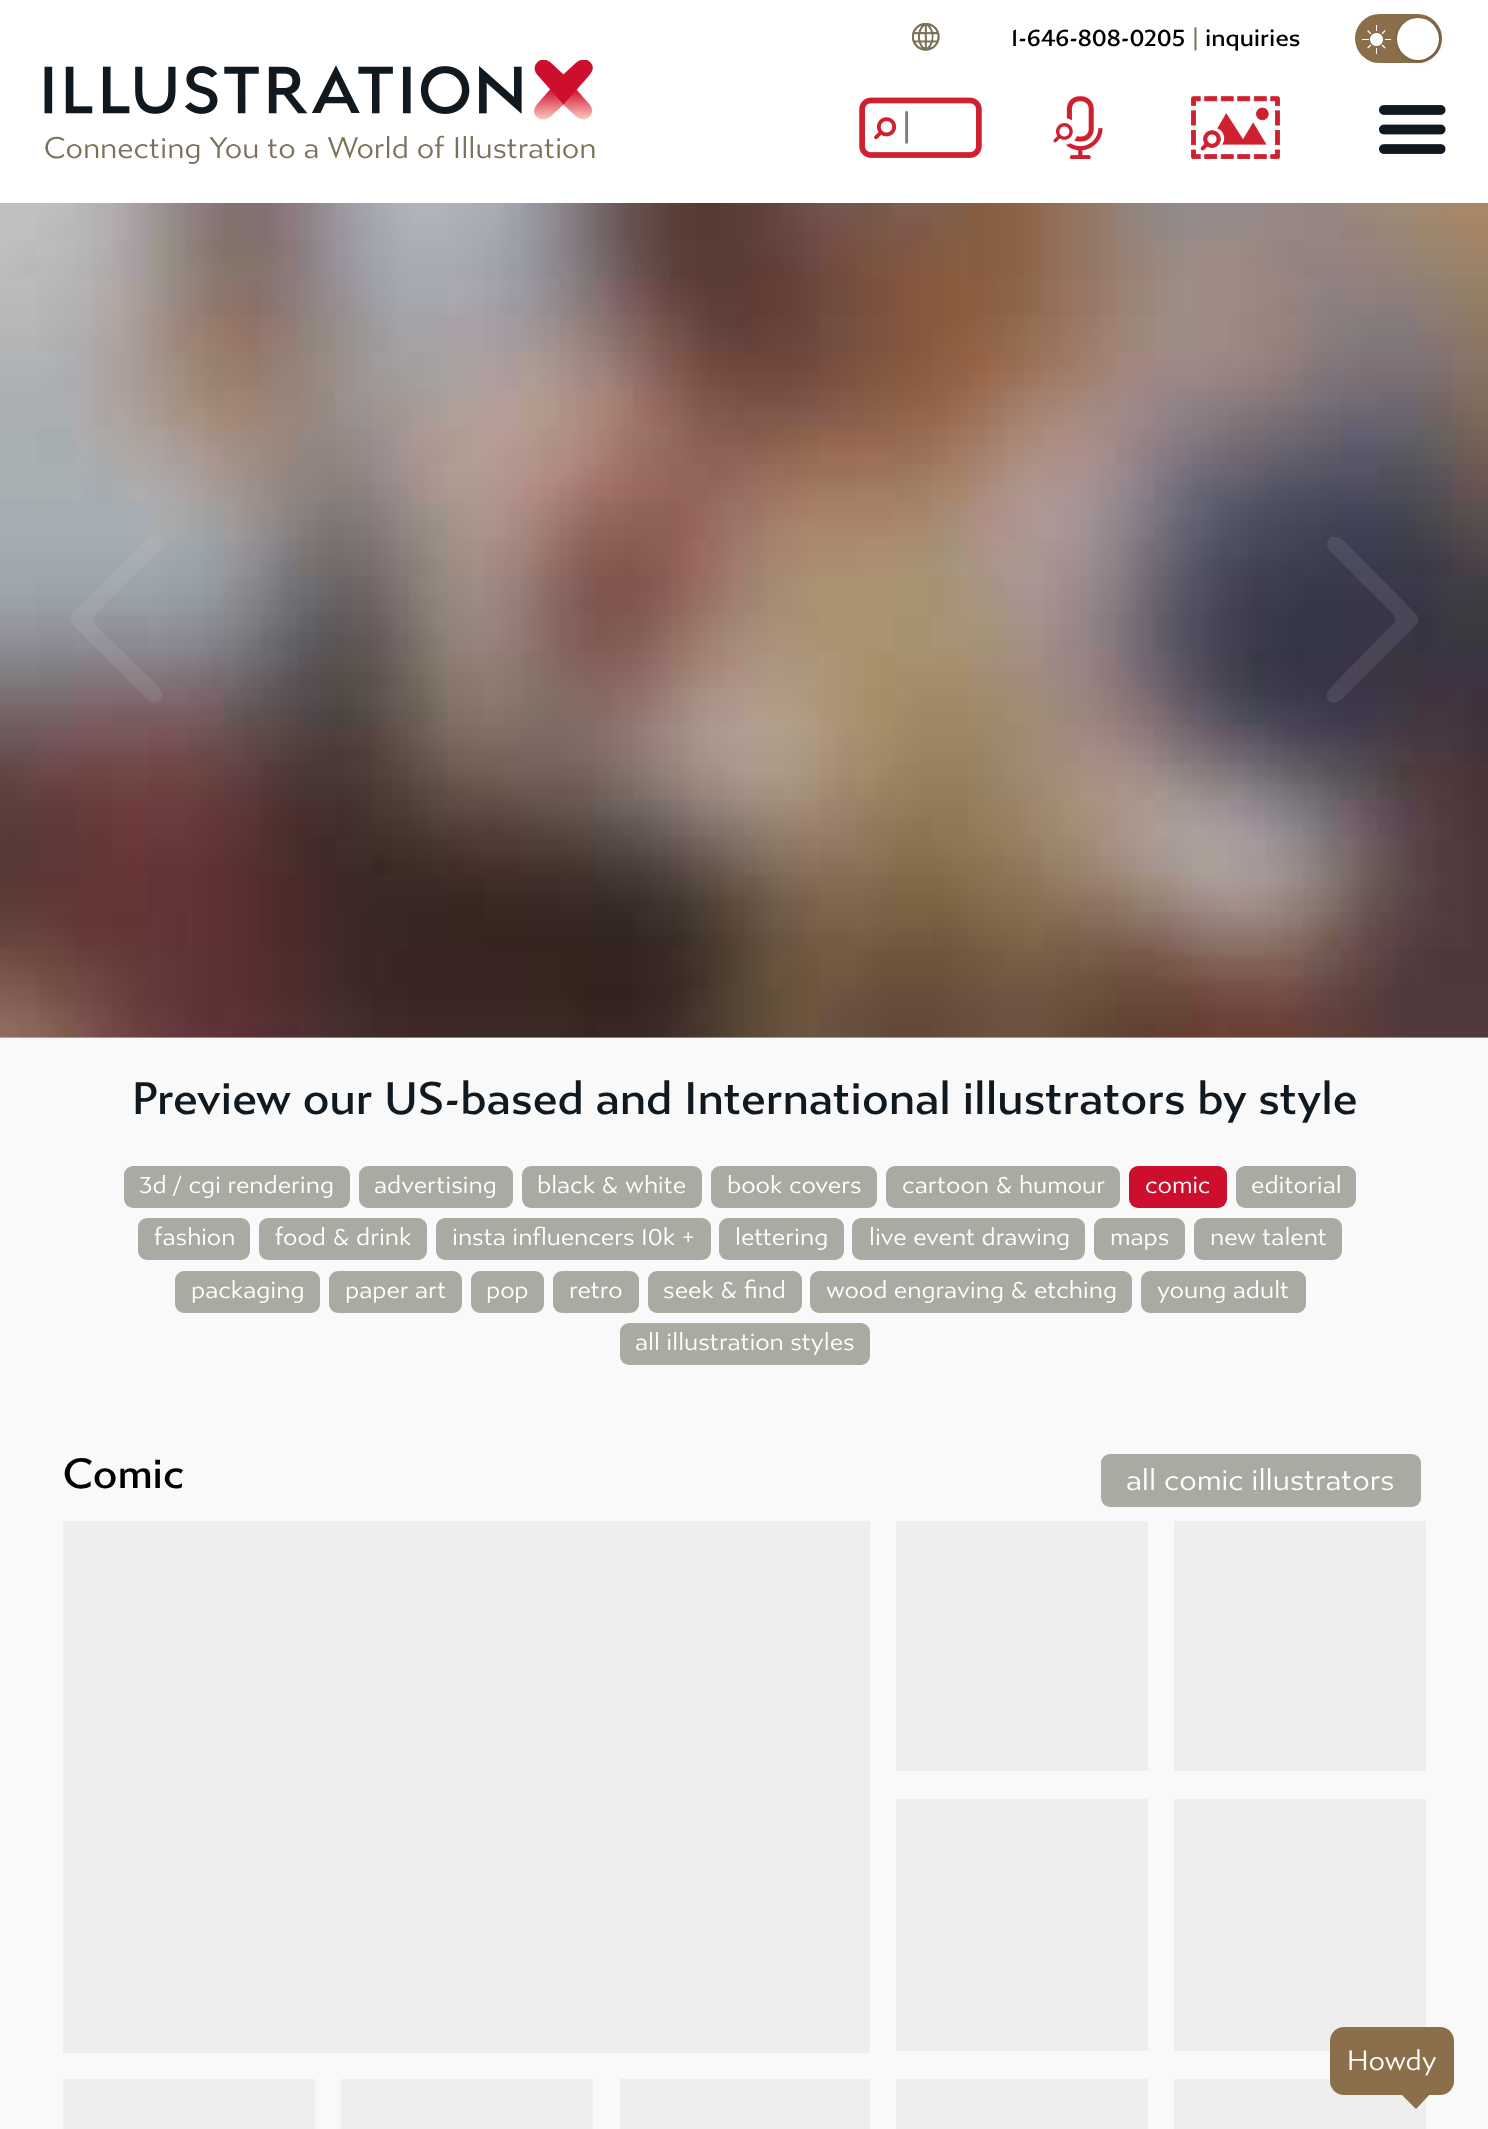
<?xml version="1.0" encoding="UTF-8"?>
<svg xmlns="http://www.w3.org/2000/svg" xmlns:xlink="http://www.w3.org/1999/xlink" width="1488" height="2129">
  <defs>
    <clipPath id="clip1"><rect x="70" y="537" width="93" height="167" /></clipPath>
    <clipPath id="clip2"><rect x="1327" y="537" width="92" height="167" /></clipPath>
  </defs>
  <rect width="100%" height="100%" fill="#efefea" />
  <rect width="1488" height="203" fill="#ffffff" />
  <image x="912" y="23" width="28" height="28" xlink:href="image1.png" />
  <rect x="1355" y="14" width="87" height="49" rx="24.5" fill="#8b6f4b" />
  <image x="1362" y="25" width="29" height="29" xlink:href="image2.png" />
  <rect x="1398" y="19" width="42" height="42" rx="21" fill="#000000" fill-opacity="0.3" filter="blur(2px)" />
  <circle cx="1418" cy="39" r="21" fill="#ffffff" />
  <image x="44" y="60" width="549" height="60" xlink:href="image3.png" />
  <image x="859" y="97" width="123" height="61" xlink:href="image4.png" />
  <image x="1053" y="96" width="50" height="63" xlink:href="image5.png" />
  <image x="1191" y="96" width="89" height="63" xlink:href="image6.png" />
  <image x="1379" y="105" width="67" height="49" xlink:href="image7.png" />
  <image x="0" y="203" width="1488" height="835" xlink:href="image8.png" />
  <g clip-path="url(#clip1)">
    <path d="M 162 693 c -4 -9 -12 -15 -19 -21 l -37 -37 c -9 -9 -18 -13 -7 -24 l 52 -52 c 4 -4 14 -11 10 -19 c -1 -1 -3 -3 -4 -4 c -3 -1 -8 0 -10 3 l -73 73 c -5 5 -5 9 0 14 l 63 63 c 4 4 14 18 22 12 c 2 -2 3 -5 3 -8 z" fill="#dddddd" fill-opacity="0.1" />
  </g>
  <g clip-path="url(#clip2)">
    <path d="M 1326 693 l 5 -6 l 59 -60 c 7 -6 7 -9 0 -16 l -59 -59 c -2 -2 -4 -5 -4 -8 c 0 -3 2 -5 4 -7 c 2 -1 5 -1 8 0 c 1 0 3 2 4 3 l 71 72 c 6 5 6 9 1 14 l -72 72 c -2 2 -3 3 -5 4 c -6 3 -12 -1 -12 -9 z" fill="#dddddd" fill-opacity="0.1" />
  </g>
  <rect y="1038" width="1488" height="1091" fill="#f9f9f9" />
  <rect x="124" y="1166" width="226" height="42" rx="9" fill="#a7aba1" />
  <rect x="359" y="1166" width="154" height="42" rx="9" fill="#a7aba1" />
  <rect x="522" y="1166" width="180" height="42" rx="9" fill="#a7aba1" />
  <rect x="711" y="1166" width="166" height="42" rx="9" fill="#a7aba1" />
  <rect x="886" y="1166" width="234" height="42" rx="9" fill="#a7aba1" />
  <rect x="1129" y="1166" width="98" height="42" rx="9" fill="#ce0e2d" />
  <rect x="1236" y="1166" width="120" height="42" rx="9" fill="#a7aba1" />
  <rect x="138" y="1218" width="112" height="42" rx="9" fill="#a7aba1" />
  <rect x="259" y="1218" width="168" height="42" rx="9" fill="#a7aba1" />
  <rect x="436" y="1218" width="275" height="42" rx="9" fill="#a7aba1" />
  <rect x="719" y="1218" width="125" height="42" rx="9" fill="#a7aba1" />
  <rect x="852" y="1218" width="233" height="42" rx="9" fill="#a7aba1" />
  <rect x="1094" y="1218" width="91" height="42" rx="9" fill="#a7aba1" />
  <rect x="1194" y="1218" width="148" height="42" rx="9" fill="#a7aba1" />
  <rect x="175" y="1271" width="145" height="42" rx="9" fill="#a7aba1" />
  <rect x="329" y="1271" width="133" height="42" rx="9" fill="#a7aba1" />
  <rect x="471" y="1271" width="73" height="42" rx="9" fill="#a7aba1" />
  <rect x="553" y="1271" width="86" height="42" rx="9" fill="#a7aba1" />
  <rect x="648" y="1271" width="154" height="42" rx="9" fill="#a7aba1" />
  <rect x="810" y="1271" width="322" height="42" rx="9" fill="#a7aba1" />
  <rect x="1141" y="1271" width="165" height="42" rx="9" fill="#a7aba1" />
  <rect x="620" y="1323" width="250" height="42" rx="9" fill="#a7aba1" />
  <rect x="1101" y="1454" width="320" height="53" rx="9" fill="#a7aba1" />
  <rect x="63" y="1521" width="807" height="532" fill="#eeeeee" />
  <rect x="896" y="1521" width="252" height="250" fill="#eeeeee" />
  <rect x="1174" y="1521" width="252" height="250" fill="#eeeeee" />
  <rect x="896" y="1799" width="252" height="252" fill="#eeeeee" />
  <rect x="1174" y="1799" width="252" height="252" fill="#eeeeee" />
  <rect x="63" y="2079" width="252" height="50" fill="#eeeeee" />
  <rect x="341" y="2079" width="252" height="50" fill="#eeeeee" />
  <rect x="620" y="2079" width="250" height="50" fill="#eeeeee" />
  <rect x="896" y="2079" width="252" height="50" fill="#eeeeee" />
  <rect x="1174" y="2079" width="252" height="50" fill="#eeeeee" />
  <rect x="1330" y="2027" width="124" height="68" rx="14" fill="#8b6f4b" />
  <path d="M 1398 2091 h 35 l -17 18 z" fill="#8b6f4b" />
  <text x="1011" y="46" style="font-family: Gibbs; font-size: 24.5px; font-weight: 500; fill: #000000">1-646-808-0205</text>
  <text x="1192" y="46" style="font-family: Gibbs; font-size: 24.5px; font-weight: 500; fill: #7a7157">|</text>
  <text x="1205" y="46" style="font-family: Gibbs; font-size: 24.5px; font-weight: 500; fill: #000000">inquiries</text>
  <text x="44" y="158" style="font-family: Gibbs; font-size: 29.75px; fill: #7a7157">Connecting You to a World of Illustration</text>
  <text x="132" y="1114" style="font-family: Gibbs; font-size: 45.5px; font-weight: 500; fill: #101820">Preview our US-based and International illustrators by style</text>
  <text x="139" y="1193" style="font-family: Gibbs; font-size: 24.5px; fill: #ffffff">3d / cgi rendering</text>
  <text x="374" y="1193" style="font-family: Gibbs; font-size: 24.5px; fill: #ffffff">advertising</text>
  <text x="537" y="1193" style="font-family: Gibbs; font-size: 24.5px; fill: #ffffff">black &amp; white</text>
  <text x="727" y="1193" style="font-family: Gibbs; font-size: 24.5px; fill: #ffffff">book covers</text>
  <text x="902" y="1193" style="font-family: Gibbs; font-size: 24.5px; fill: #ffffff">cartoon &amp; humour</text>
  <text x="1145" y="1193" style="font-family: Gibbs; font-size: 24.5px; fill: #ffffff">comic</text>
  <text x="1251" y="1193" style="font-family: Gibbs; font-size: 24.5px; fill: #ffffff">editorial</text>
  <text x="154" y="1245" style="font-family: Gibbs; font-size: 24.5px; fill: #ffffff">fashion</text>
  <text x="275" y="1245" style="font-family: Gibbs; font-size: 24.5px; fill: #ffffff">food &amp; drink</text>
  <text x="452" y="1245" style="font-family: Gibbs; font-size: 24.5px; fill: #ffffff">insta influencers 10k +</text>
  <text x="735" y="1245" style="font-family: Gibbs; font-size: 24.5px; fill: #ffffff">lettering</text>
  <text x="869" y="1245" style="font-family: Gibbs; font-size: 24.5px; fill: #ffffff">live event drawing</text>
  <text x="1110" y="1245" style="font-family: Gibbs; font-size: 24.5px; fill: #ffffff">maps</text>
  <text x="1210" y="1245" style="font-family: Gibbs; font-size: 24.5px; fill: #ffffff">new talent</text>
  <text x="191" y="1298" style="font-family: Gibbs; font-size: 24.5px; fill: #ffffff">packaging</text>
  <text x="345" y="1298" style="font-family: Gibbs; font-size: 24.5px; fill: #ffffff">paper art</text>
  <text x="486" y="1298" style="font-family: Gibbs; font-size: 24.5px; fill: #ffffff">pop</text>
  <text x="569" y="1298" style="font-family: Gibbs; font-size: 24.5px; fill: #ffffff">retro</text>
  <text x="663" y="1298" style="font-family: Gibbs; font-size: 24.5px; fill: #ffffff">seek &amp; find</text>
  <text x="826" y="1298" style="font-family: Gibbs; font-size: 24.5px; fill: #ffffff">wood engraving &amp; etching</text>
  <text x="1157" y="1298" style="font-family: Gibbs; font-size: 24.5px; fill: #ffffff">young adult</text>
  <text x="635" y="1350" style="font-family: Gibbs; font-size: 24.5px; fill: #ffffff">all illustration styles</text>
  <text x="63" y="1488" style="font-family: Gibbs; font-size: 42px; font-weight: 500; fill: #000000">Comic</text>
  <text x="1126" y="1490" style="font-family: Gibbs; font-size: 29.75px; fill: #ffffff">all comic illustrators</text>
  <text x="1347" y="2070" style="font-family: Gibbs; font-size: 28px; fill: #ffffff">Howdy</text>
</svg>
